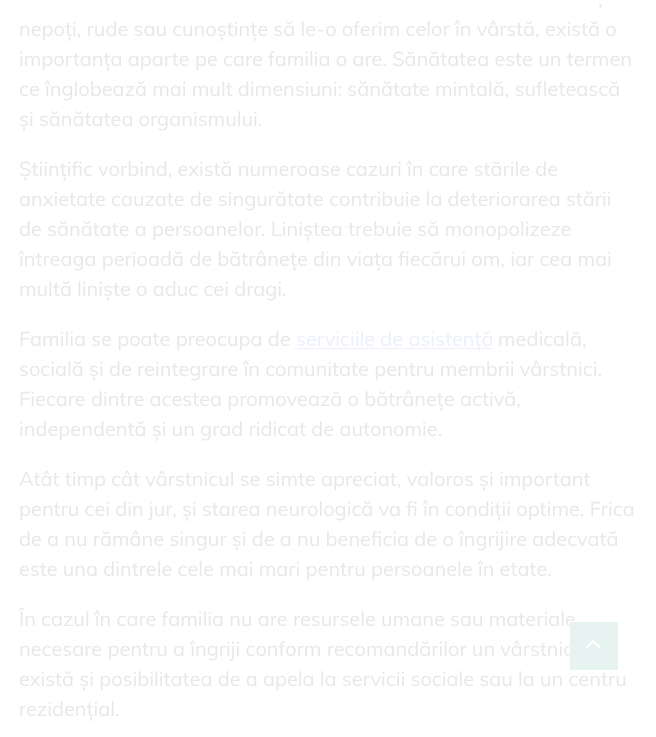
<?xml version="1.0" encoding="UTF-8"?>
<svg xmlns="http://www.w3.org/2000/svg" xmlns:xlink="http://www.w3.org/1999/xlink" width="656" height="737">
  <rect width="100%" height="100%" fill="#ffffff" />
  <rect x="295" y="348" width="198" height="1" fill="#ecf0fc" />
  <text x="598" y="6" style="font-family: Muli; font-size: 20px; fill: #e8e8e8">,</text>
  <text x="19" y="36" style="font-family: Muli; font-size: 20px; fill: #e8e8e8">nepoți, rude sau cunoștințe să le-o oferim celor în vârstă, există o</text>
  <text x="19" y="66" style="font-family: Muli; font-size: 20px; fill: #e8e8e8">importanța aparte pe care familia o are. Sănătatea este un termen</text>
  <text x="19" y="96" style="font-family: Muli; font-size: 20px; fill: #e8e8e8">ce înglobează mai mult dimensiuni: sănătate mintală, sufletească</text>
  <text x="19" y="126" style="font-family: Muli; font-size: 20px; fill: #e8e8e8">și sănătatea organismului.</text>
  <text x="19" y="176" style="font-family: Muli; font-size: 20px; fill: #e8e8e8">Științific vorbind, există numeroase cazuri în care stările de</text>
  <text x="19" y="206" style="font-family: Muli; font-size: 20px; fill: #e8e8e8">anxietate cauzate de singurătate contribuie la deteriorarea stării</text>
  <text x="19" y="236" style="font-family: Muli; font-size: 20px; fill: #e8e8e8">de sănătate a persoanelor. Liniștea trebuie să monopolizeze</text>
  <text x="19" y="266" style="font-family: Muli; font-size: 20px; fill: #e8e8e8">întreaga perioadă de bătrânețe din viața fiecărui om, iar cea mai</text>
  <text x="19" y="296" style="font-family: Muli; font-size: 20px; fill: #e8e8e8">multă liniște o aduc cei dragi.</text>
  <text x="19" y="346" style="font-family: Muli; font-size: 20px; fill: #e8e8e8">Familia se poate preocupa de</text>
  <text x="296" y="346" style="font-family: Muli; font-size: 20px; fill: #ecf0fc">serviciile de asistență</text>
  <text x="498" y="346" style="font-family: Muli; font-size: 20px; fill: #e8e8e8">medicală,</text>
  <text x="19" y="376" style="font-family: Muli; font-size: 20px; fill: #e8e8e8">socială și de reintegrare în comunitate pentru membrii vârstnici.</text>
  <text x="19" y="406" style="font-family: Muli; font-size: 20px; fill: #e8e8e8">Fiecare dintre acestea promovează o bătrânețe activă,</text>
  <text x="19" y="436" style="font-family: Muli; font-size: 20px; fill: #e8e8e8">independentă și un grad ridicat de autonomie.</text>
  <text x="19" y="486" style="font-family: Muli; font-size: 20px; fill: #e8e8e8">Atât timp cât vârstnicul se simte apreciat, valoros și important</text>
  <text x="19" y="516" style="font-family: Muli; font-size: 20px; fill: #e8e8e8">pentru cei din jur, și starea neurologică va fi în condiții optime. Frica</text>
  <text x="19" y="546" style="font-family: Muli; font-size: 20px; fill: #e8e8e8">de a nu rămâne singur și de a nu beneficia de o îngrijire adecvată</text>
  <text x="19" y="576" style="font-family: Muli; font-size: 20px; fill: #e8e8e8">este una dintrele cele mai mari pentru persoanele în etate.</text>
  <text x="19" y="626" style="font-family: Muli; font-size: 20px; fill: #e8e8e8">În cazul în care familia nu are resursele umane sau materiale</text>
  <text x="19" y="656" style="font-family: Muli; font-size: 20px; fill: #e8e8e8">necesare pentru a îngriji conform recomandărilor un vârstnic</text>
  <text x="19" y="686" style="font-family: Muli; font-size: 20px; fill: #e8e8e8">există și posibilitatea de a apela la servicii sociale sau la un centru</text>
  <text x="19" y="716" style="font-family: Muli; font-size: 20px; fill: #e8e8e8">rezidențial.</text>
  <rect x="569.5" y="621.5" width="49" height="49" fill="#e7f3f0" stroke="#ffffff" />
  <image x="586" y="640" width="15" height="9" xlink:href="image1.png" />
</svg>
